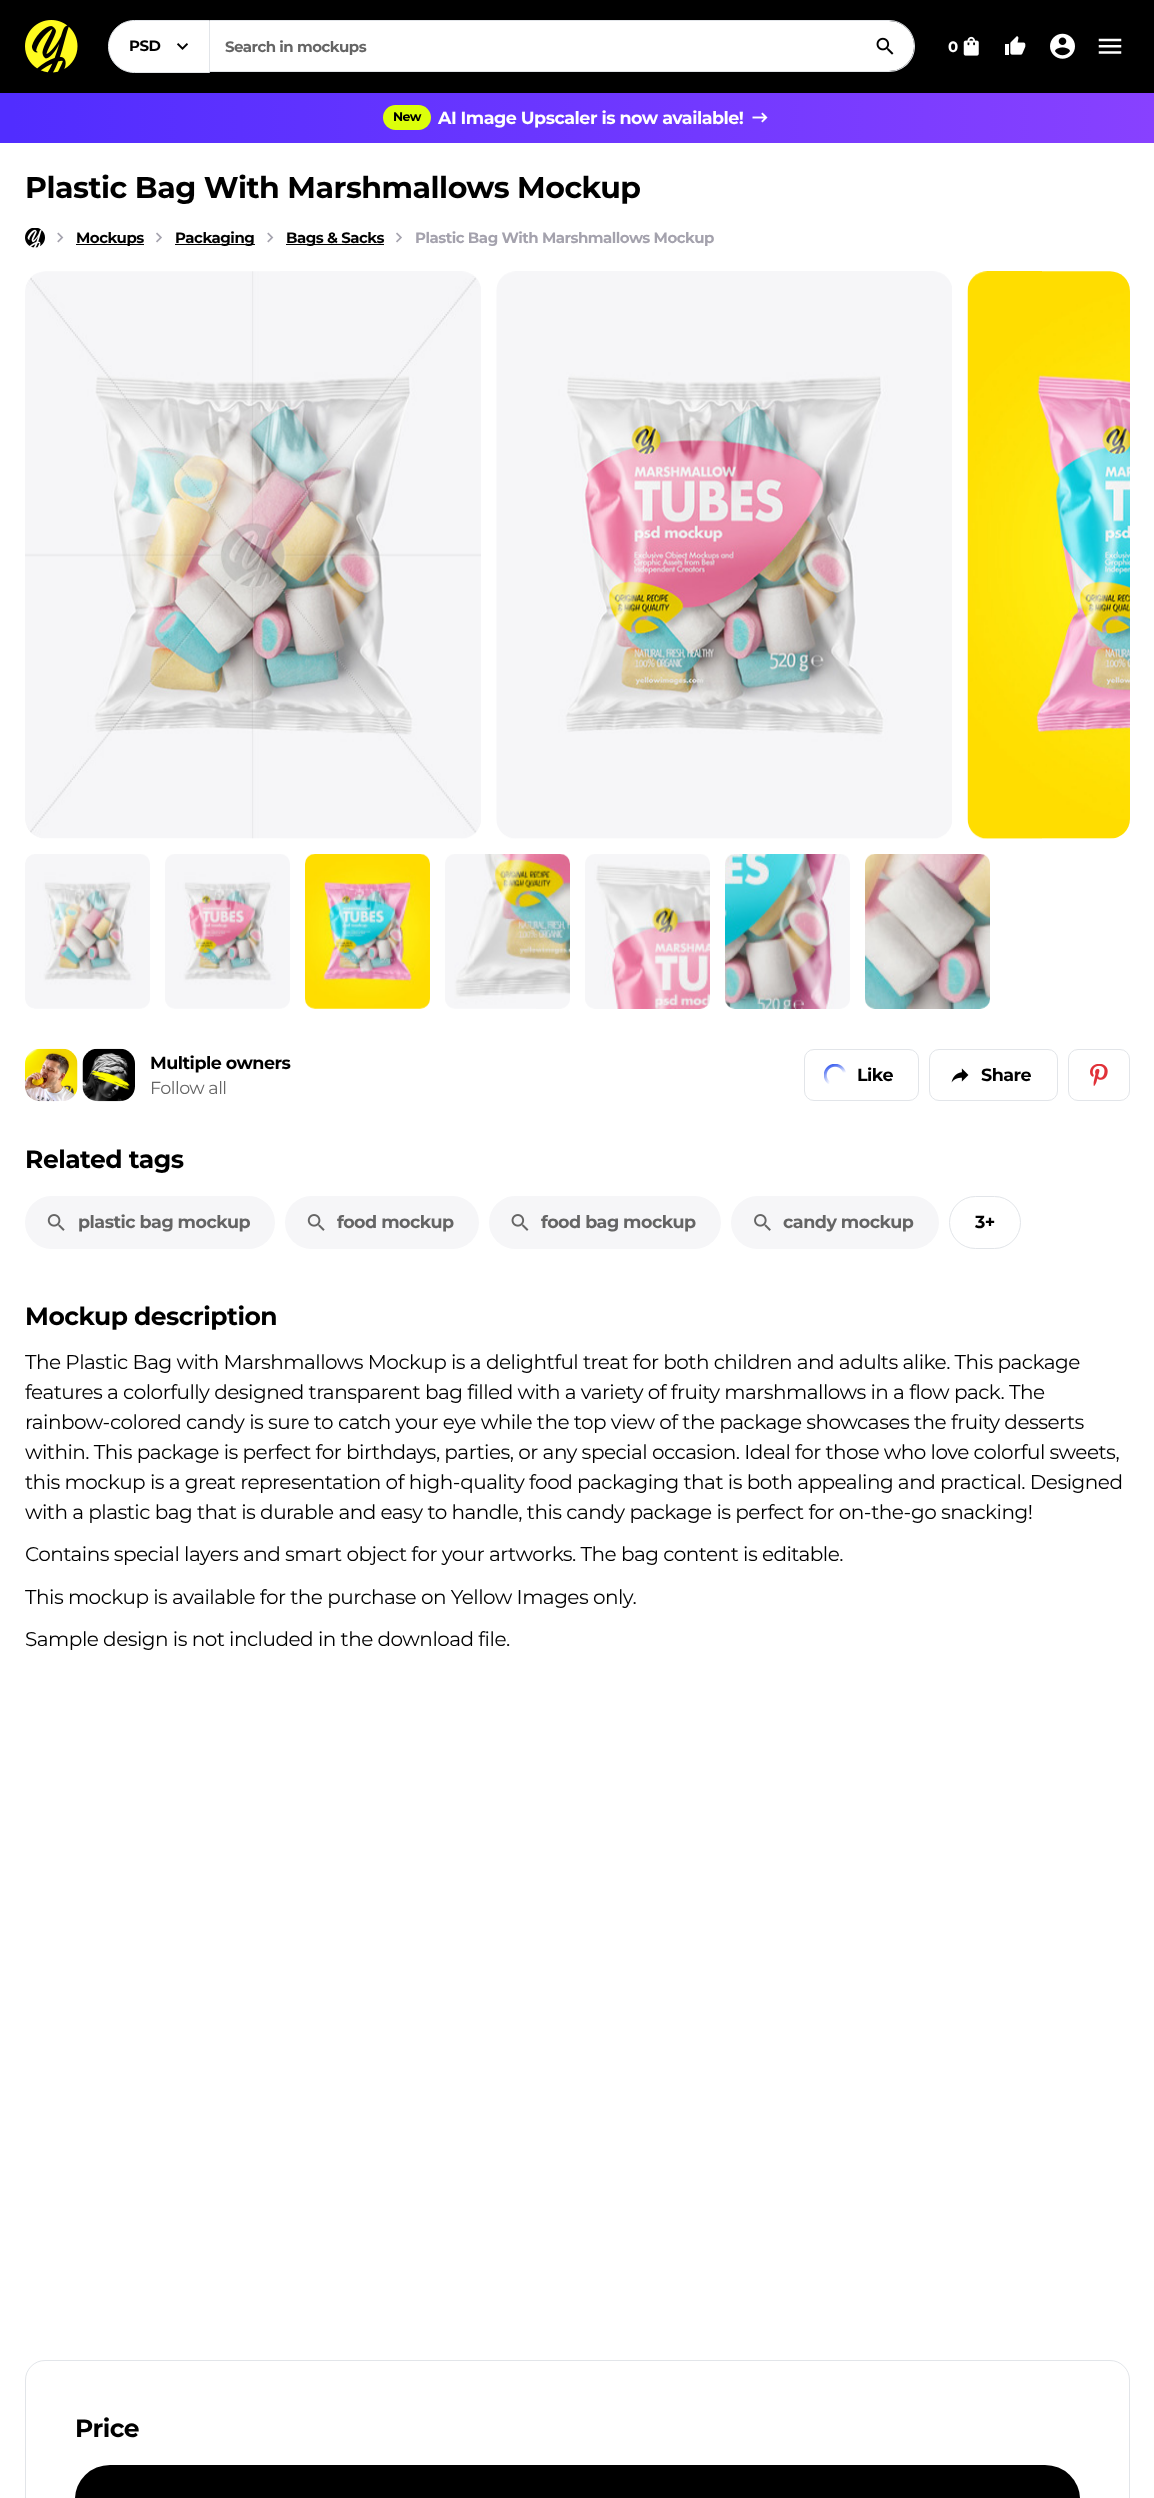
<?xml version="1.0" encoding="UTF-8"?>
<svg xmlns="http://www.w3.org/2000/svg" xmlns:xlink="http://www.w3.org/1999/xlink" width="1154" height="2498">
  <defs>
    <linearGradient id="g1" gradientUnits="userSpaceOnUse" x1="0" y1="118" x2="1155" y2="117"><stop offset="0.01" stop-color="#512dff" /><stop offset="1" stop-color="#8841ff" /></linearGradient>
  </defs>
  <rect width="100%" height="100%" fill="#ffffff" />
  <rect width="1154" height="93" fill="#000000" />
  <image x="25" y="20" width="53" height="53" xlink:href="image1.png" />
  <path d="M 134.5 20.5 h 75 v 52 h -75 c -14.5 0 -26 -11.5 -26 -26 c 0 -14.5 11.5 -26 26 -26 z" fill="#ffffff" stroke="#e2e5e9" />
  <image x="177" y="43" width="11" height="7" xlink:href="image2.png" />
  <path d="M 210 21 h 679 c 14 0 25 11 25 25 c 0 14 -11 25 -25 25 h -679 z" fill="#ffffff" />
  <path d="M 210 20 h 679 c 14 0 26 12 26 26 c 0 15 -12 26 -26 26 h -679 z m 0 1 h 679 c 14 0 25 11 25 25 c 0 14 -11 25 -25 25 h -679 z" fill="#e2e5e9" fill-rule="evenodd" />
  <image x="876" y="37" width="18" height="18" xlink:href="image3.png" />
  <image x="963" y="36" width="16" height="20" xlink:href="image4.png" />
  <image x="1005" y="36" width="21" height="19" xlink:href="image5.png" />
  <image x="1050" y="33" width="25" height="26" xlink:href="image6.png" />
  <image x="1098" y="38" width="24" height="16" xlink:href="image7.png" />
  <rect y="93" width="1154" height="50" fill="url(#g1)" />
  <rect x="383" y="105" width="48" height="25" rx="12.5" fill="#dcff0b" />
  <image x="752" y="112" width="16" height="11" xlink:href="image8.png" />
  <image x="25" y="228" width="20" height="20" xlink:href="image9.png" />
  <image x="57" y="232" width="7" height="11" xlink:href="image10.png" />
  <rect x="76" y="244" width="68" height="1" fill="#000000" />
  <image x="156" y="232" width="6" height="11" xlink:href="image11.png" />
  <rect x="175" y="244" width="80" height="1" fill="#000000" />
  <image x="267" y="232" width="7" height="11" xlink:href="image10.png" />
  <rect x="286" y="244" width="98" height="1" fill="#000000" />
  <image x="396" y="232" width="6" height="11" xlink:href="image11.png" />
  <image x="25" y="271" width="456" height="568" xlink:href="image12.png" />
  <image x="496" y="271" width="456" height="568" xlink:href="image13.png" />
  <image x="967" y="271" width="163" height="568" xlink:href="image14.png" />
  <image x="25" y="854" width="125" height="155" xlink:href="image15.png" />
  <image x="165" y="854" width="125" height="155" xlink:href="image16.png" />
  <image x="305" y="854" width="125" height="155" xlink:href="image17.png" />
  <image x="445" y="854" width="125" height="155" xlink:href="image18.png" />
  <image x="585" y="854" width="125" height="155" xlink:href="image19.png" />
  <image x="725" y="854" width="125" height="155" xlink:href="image20.png" />
  <image x="865" y="854" width="125" height="155" xlink:href="image21.png" />
  <image x="25" y="1048" width="53" height="54" xlink:href="image22.png" />
  <image x="82" y="1048" width="53" height="54" xlink:href="image23.png" />
  <rect x="804.5" y="1049.5" width="114" height="51" rx="9.5" fill="none" stroke="#e2e5e9" />
  <image x="824" y="1064" width="22" height="20" xlink:href="image24.png" />
  <rect x="929.5" y="1049.5" width="128" height="51" rx="9.5" fill="none" stroke="#e2e5e9" />
  <image x="951" y="1068" width="18" height="15" xlink:href="image25.png" />
  <rect x="1068.5" y="1049.5" width="61" height="51" rx="9.5" fill="none" stroke="#e2e5e9" />
  <image x="1090" y="1064" width="18" height="22" xlink:href="image26.png" />
  <rect x="25" y="1196" width="250" height="53" rx="26.5" fill="#f6f6f8" />
  <image x="47" y="1214" width="18" height="17" xlink:href="image27.png" />
  <rect x="285" y="1196" width="194" height="53" rx="26.5" fill="#f6f6f8" />
  <image x="307" y="1214" width="18" height="17" xlink:href="image27.png" />
  <rect x="489" y="1196" width="232" height="53" rx="26.5" fill="#f6f6f8" />
  <image x="511" y="1214" width="18" height="17" xlink:href="image28.png" />
  <rect x="731" y="1196" width="208" height="53" rx="26.5" fill="#f6f6f8" />
  <image x="754" y="1214" width="17" height="17" xlink:href="image29.png" />
  <rect x="949.5" y="1196.5" width="71" height="52" rx="26" fill="none" stroke="#e2e5e9" />
  <rect x="25.5" y="2360.5" width="1104" height="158" rx="19.5" fill="none" stroke="#e2e5e9" />
  <rect x="75" y="2465" width="1005" height="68" rx="35" fill="#000000" />
  <text x="129" y="51" style="font-family: Montserrat; font-size: 15px; font-weight: 100; letter-spacing: -0.5px; fill: #000000">PSD</text>
  <text x="225" y="52" style="font-family: Montserrat; font-size: 15px; font-weight: 100; letter-spacing: -0.5px; fill: #656565">Search in mockups</text>
  <text x="948" y="52" style="font-family: Montserrat; font-size: 15px; font-weight: 100; letter-spacing: -0.5px; fill: #ffffff">0</text>
  <text x="393" y="121" style="font-family: Montserrat; font-size: 12.5px; font-weight: 100; letter-spacing: -0.5px; fill: #000000">New</text>
  <text x="438" y="124" style="font-family: Montserrat; font-size: 17.5px; font-weight: 100; letter-spacing: -0.5px; fill: #ffffff">AI Image Upscaler is now available!</text>
  <text x="25" y="198" style="font-family: Montserrat; font-size: 30px; font-weight: 100; letter-spacing: -0.5px; fill: #000000">Plastic Bag With Marshmallows Mockup</text>
  <text x="76" y="243" style="font-family: Montserrat; font-size: 15px; font-weight: 100; letter-spacing: -0.5px; fill: #000000">Mockups</text>
  <text x="175" y="243" style="font-family: Montserrat; font-size: 15px; font-weight: 100; letter-spacing: -0.5px; fill: #000000">Packaging</text>
  <text x="286" y="243" style="font-family: Montserrat; font-size: 15px; font-weight: 100; letter-spacing: -0.5px; fill: #000000">Bags &amp; Sacks</text>
  <text x="415" y="243" style="font-family: Montserrat; font-size: 15px; font-weight: 100; letter-spacing: -0.5px; fill: #a4a2ad">Plastic Bag With Marshmallows Mockup</text>
  <text x="150" y="1069" style="font-family: Montserrat; font-size: 17.5px; font-weight: 100; letter-spacing: -0.5px; fill: #000000">Multiple owners</text>
  <text x="150" y="1094" style="font-family: 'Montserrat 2'; font-size: 17.5px; font-weight: 100; letter-spacing: -0.5px; fill: #656565">Follow all</text>
  <text x="857" y="1081" style="font-family: Montserrat; font-size: 17.5px; font-weight: 100; letter-spacing: -0.5px; fill: #000000">Like</text>
  <text x="981" y="1081" style="font-family: Montserrat; font-size: 17.5px; font-weight: 100; letter-spacing: -0.5px; fill: #000000">Share</text>
  <text x="25" y="1168" style="font-family: Montserrat; font-size: 25px; font-weight: 100; letter-spacing: -0.5px; fill: #000000">Related tags</text>
  <text x="78" y="1228" style="font-family: Montserrat; font-size: 17.5px; font-weight: 100; letter-spacing: -0.5px; fill: #656565">plastic bag mockup</text>
  <text x="337" y="1228" style="font-family: Montserrat; font-size: 17.5px; font-weight: 100; letter-spacing: -0.5px; fill: #656565">food mockup</text>
  <text x="541" y="1228" style="font-family: Montserrat; font-size: 17.5px; font-weight: 100; letter-spacing: -0.5px; fill: #656565">food bag mockup</text>
  <text x="783" y="1228" style="font-family: Montserrat; font-size: 17.5px; font-weight: 100; letter-spacing: -0.5px; fill: #656565">candy mockup</text>
  <text x="975" y="1228" style="font-family: Montserrat; font-size: 17.5px; font-weight: 100; letter-spacing: -0.5px; fill: #000000">3+</text>
  <text x="25" y="1325" style="font-family: Montserrat; font-size: 25px; font-weight: 100; letter-spacing: -0.5px; fill: #000000">Mockup description</text>
  <text x="25" y="1369" style="font-family: 'Montserrat 2'; font-size: 20px; font-weight: 100; letter-spacing: -0.5px; fill: #000000">The Plastic Bag with Marshmallows Mockup is a delightful treat for both children and adults alike. This package</text>
  <text x="25" y="1399" style="font-family: 'Montserrat 2'; font-size: 20px; font-weight: 100; letter-spacing: -0.5px; fill: #000000">features a colorfully designed transparent bag filled with a variety of fruity marshmallows in a flow pack. The</text>
  <text x="25" y="1429" style="font-family: 'Montserrat 2'; font-size: 20px; font-weight: 100; letter-spacing: -0.5px; fill: #000000">rainbow-colored candy is sure to catch your eye while the top view of the package showcases the fruity desserts</text>
  <text x="25" y="1459" style="font-family: 'Montserrat 2'; font-size: 20px; font-weight: 100; letter-spacing: -0.5px; fill: #000000">within. This package is perfect for birthdays, parties, or any special occasion. Ideal for those who love colorful sweets,</text>
  <text x="25" y="1489" style="font-family: 'Montserrat 2'; font-size: 20px; font-weight: 100; letter-spacing: -0.5px; fill: #000000">this mockup is a great representation of high-quality food packaging that is both appealing and practical. Designed</text>
  <text x="25" y="1519" style="font-family: 'Montserrat 2'; font-size: 20px; font-weight: 100; letter-spacing: -0.5px; fill: #000000">with a plastic bag that is durable and easy to handle, this candy package is perfect for on-the-go snacking!</text>
  <text x="25" y="1561" style="font-family: 'Montserrat 2'; font-size: 20px; font-weight: 100; letter-spacing: -0.5px; fill: #000000">Contains special layers and smart object for your artworks. The bag content is editable.</text>
  <text x="25" y="1604" style="font-family: 'Montserrat 2'; font-size: 20px; font-weight: 100; letter-spacing: -0.5px; fill: #000000">This mockup is available for the purchase on Yellow Images only.</text>
  <text x="25" y="1646" style="font-family: 'Montserrat 2'; font-size: 20px; font-weight: 100; letter-spacing: -0.5px; fill: #000000">Sample design is not included in the download file.</text>
  <text x="75" y="2437" style="font-family: Montserrat; font-size: 25px; font-weight: 100; letter-spacing: -0.5px; fill: #000000">Price</text>
</svg>
